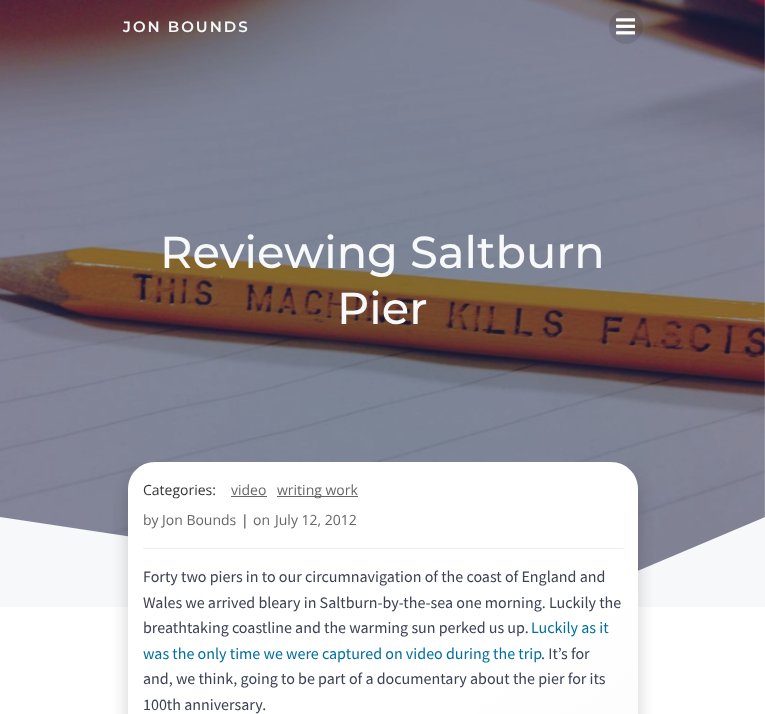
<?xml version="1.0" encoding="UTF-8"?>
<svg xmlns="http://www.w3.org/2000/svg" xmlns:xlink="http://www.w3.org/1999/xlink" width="765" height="714">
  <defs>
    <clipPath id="clip1"><rect x="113" y="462" width="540" height="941" /></clipPath>
    <linearGradient id="g1" gradientUnits="userSpaceOnUse" x1="119" y1="468" x2="647" y2="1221"><stop offset="0.42" stop-color="#ffffff" /><stop offset="1" stop-color="#f3f3f3" /></linearGradient>
  </defs>
  <rect width="100%" height="100%" fill="#ffffff" />
  <image x="0" y="0" width="765" height="571" xlink:href="image2.png" />
  <circle cx="626" cy="27" r="17" fill="#000000" fill-opacity="0.1" />
  <image x="616" y="18" width="19" height="17" xlink:href="image1.png" />
  <path d="M 564 602 l -564 -85 v 90 h 765 v -90 z" fill="#f6f8fa" />
  <g clip-path="url(#clip1)">
    <rect x="126" y="470" width="514" height="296" rx="29" fill="#000000" fill-opacity="0.15" filter="blur(7.5px)" />
  </g>
  <path d="M 155 462 h 456 c 15 0 27 12 27 27 v 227 c 0 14 -11 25 -25 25 h -460 c -14 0 -25 -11 -25 -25 v -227 c 0 -15 12 -27 27 -27 z" fill="url(#g1)" />
  <rect x="143" y="548" width="480" height="1" fill="#eeeeee" />
  <rect x="231" y="496" width="36" height="1" fill="#666666" />
  <rect x="277" y="496" width="81" height="1" fill="#666666" />
  <text x="123" y="32" style="font-family: Montserrat; font-size: 15px; font-weight: 600; letter-spacing: 2px; fill: #f6f8fa">JON BOUNDS</text>
  <text x="160" y="268" style="font-family: Montserrat; font-size: 44.75px; font-weight: 500; fill: #f6f8fa">Reviewing Saltburn</text>
  <text x="337" y="324" style="font-family: Montserrat; font-size: 44.75px; font-weight: 500; fill: #f6f8fa">Pier</text>
  <text x="143" y="495" style="font-family: Open Sans; font-size: 14px; fill: #333333">Categories:</text>
  <text x="231" y="495" style="font-family: Open Sans; font-size: 14px; fill: #666666">video</text>
  <text x="277" y="495" style="font-family: Open Sans; font-size: 14px; fill: #666666">writing work</text>
  <text x="143" y="525" style="font-family: Open Sans; font-size: 14px; fill: #666666">by</text>
  <text x="162" y="525" style="font-family: Open Sans; font-size: 14px; fill: #666666">Jon Bounds</text>
  <text x="241" y="525" style="font-family: Open Sans; font-size: 14px; fill: #333333">|</text>
  <text x="253" y="525" style="font-family: Open Sans; font-size: 14px; fill: #666666">on</text>
  <text x="275" y="525" style="font-family: Open Sans; font-size: 14px; fill: #666666">July 12, 2012</text>
  <text x="143" y="582" style="font-family: Source Sans Pro; font-size: 16px; fill: #3c4154">Forty two piers in to our circumnavigation of the coast of England and</text>
  <text x="143" y="608" style="font-family: Source Sans Pro; font-size: 16px; fill: #3c4154">Wales we arrived bleary in Saltburn-by-the-sea one morning. Luckily the</text>
  <text x="143" y="633" style="font-family: Source Sans Pro; font-size: 16px; fill: #3c4154">breathtaking coastline and the warming sun perked us up.</text>
  <text x="531" y="633" style="font-family: Source Sans Pro; font-size: 16px; fill: #026e9f">Luckily as it</text>
  <text x="143" y="659" style="font-family: Source Sans Pro; font-size: 16px; fill: #026e9f">was the only time we were captured on video during the trip</text>
  <text x="541" y="659" style="font-family: Source Sans Pro; font-size: 16px; fill: #3c4154">. It’s for</text>
  <text x="143" y="684" style="font-family: Source Sans Pro; font-size: 16px; fill: #3c4154">and, we think, going to be part of a documentary about the pier for its</text>
  <text x="143" y="710" style="font-family: Source Sans Pro; font-size: 16px; fill: #3c4154">100th anniversary.</text>
</svg>
